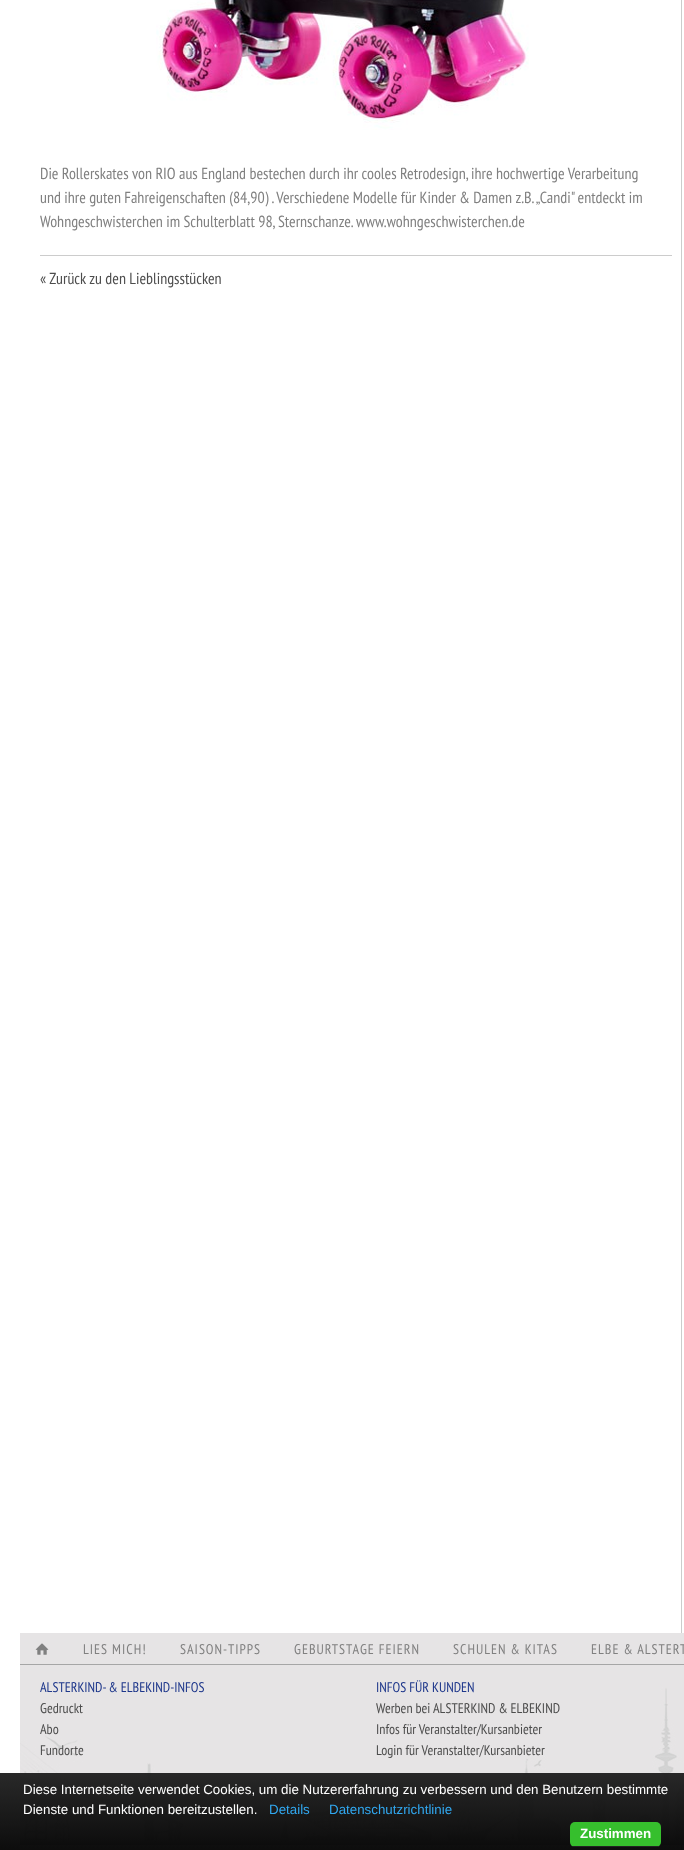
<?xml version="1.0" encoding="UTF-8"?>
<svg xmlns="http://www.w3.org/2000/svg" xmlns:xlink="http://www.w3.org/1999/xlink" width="684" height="1850">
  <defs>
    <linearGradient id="g1" gradientUnits="userSpaceOnUse" x1="342" y1="1773" x2="342" y2="1850"><stop offset="0" stop-color="#1e1e1e" stop-opacity="0.95" /><stop offset="1" stop-color="#000000" stop-opacity="0.95" /></linearGradient>
  </defs>
  <rect width="100%" height="100%" fill="#ffffff" />
  <rect x="681" width="1" height="1850" fill="#cccccc" />
  <rect x="40" y="255" width="632" height="1" fill="#cccccc" />
  <image x="156" y="0" width="373" height="130" xlink:href="image1.png" />
  <image x="20" y="1633" width="664" height="212" xlink:href="image2.png" />
  <rect x="20" y="1664" width="664" height="1" fill="#a6a6a6" />
  <image x="35" y="1643" width="14" height="12" xlink:href="image3.png" />
  <rect y="1773" width="684" height="77" fill="url(#g1)" />
  <rect x="570" y="1822" width="91" height="25" rx="5" fill="#36bf2d" />
  <rect x="573" y="1846" width="86" height="1" fill="#222222" />
  <text x="40" y="179" style="font-family: PT Sans Narrow; font-size: 16px; fill: #808080">Die Rollerskates von RIO aus England bestechen durch ihr cooles Retrodesign, ihre hochwertige Verarbeitung</text>
  <text x="40" y="203" style="font-family: PT Sans Narrow; font-size: 16px; fill: #808080">und ihre guten Fahreigenschaften (84,90) . Verschiedene Modelle für Kinder &amp; Damen z.B. „Candi" entdeckt im</text>
  <text x="40" y="227" style="font-family: PT Sans Narrow; font-size: 16px; fill: #808080">Wohngeschwisterchen im Schulterblatt 98, Sternschanze. www.wohngeschwisterchen.de</text>
  <text x="40" y="284" style="font-family: PT Sans Narrow; font-size: 16px; fill: #4d4d4d">« Zurück zu den Lieblingsstücken</text>
  <text x="83" y="1654" style="font-family: PT Sans Narrow; font-size: 14px; letter-spacing: 1px; fill: #808080">LIES MICH!</text>
  <text x="180" y="1654" style="font-family: PT Sans Narrow; font-size: 14px; letter-spacing: 1px; fill: #808080">SAISON-TIPPS</text>
  <text x="294" y="1654" style="font-family: PT Sans Narrow; font-size: 14px; letter-spacing: 1px; fill: #808080">GEBURTSTAGE FEIERN</text>
  <text x="453" y="1654" style="font-family: PT Sans Narrow; font-size: 14px; letter-spacing: 1px; fill: #808080">SCHULEN &amp; KITAS</text>
  <text x="591" y="1654" style="font-family: PT Sans Narrow; font-size: 14px; letter-spacing: 1px; fill: #808080">ELBE &amp; ALSTERT</text>
  <text x="40" y="1692" style="font-family: PT Sans Narrow; font-size: 14px; fill: #1e378b">ALSTERKIND- &amp; ELBEKIND-INFOS</text>
  <text x="40" y="1713" style="font-family: PT Sans Narrow; font-size: 14px; fill: #4d4d4d">Gedruckt</text>
  <text x="40" y="1734" style="font-family: PT Sans Narrow; font-size: 14px; fill: #4d4d4d">Abo</text>
  <text x="40" y="1755" style="font-family: PT Sans Narrow; font-size: 14px; fill: #4d4d4d">Fundorte</text>
  <text x="376" y="1692" style="font-family: PT Sans Narrow; font-size: 14px; fill: #1e378b">INFOS FÜR KUNDEN</text>
  <text x="376" y="1713" style="font-family: PT Sans Narrow; font-size: 14px; fill: #4d4d4d">Werben bei ALSTERKIND &amp; ELBEKIND</text>
  <text x="376" y="1734" style="font-family: PT Sans Narrow; font-size: 14px; fill: #4d4d4d">Infos für Veranstalter/Kursanbieter</text>
  <text x="376" y="1755" style="font-family: PT Sans Narrow; font-size: 14px; fill: #4d4d4d">Login für Veranstalter/Kursanbieter</text>
  <text x="23" y="1794" style="font-family: Liberation Sans; font-size: 13.35px; fill: #ffffff">Diese Internetseite verwendet Cookies, um die Nutzererfahrung zu verbessern und den Benutzern bestimmte</text>
  <text x="23" y="1814" style="font-family: Liberation Sans; font-size: 13.35px; fill: #ffffff">Dienste und Funktionen bereitzustellen.</text>
  <text x="269" y="1814" style="font-family: Liberation Sans; font-size: 13.35px; fill: #31a8f0">Details</text>
  <text x="329" y="1814" style="font-family: Liberation Sans; font-size: 13.35px; fill: #31a8f0">Datenschutzrichtlinie</text>
  <text x="580" y="1838" style="font-family: Liberation Sans; font-size: 13.35px; font-weight: bold; fill: #ffffff">Zustimmen</text>
</svg>
